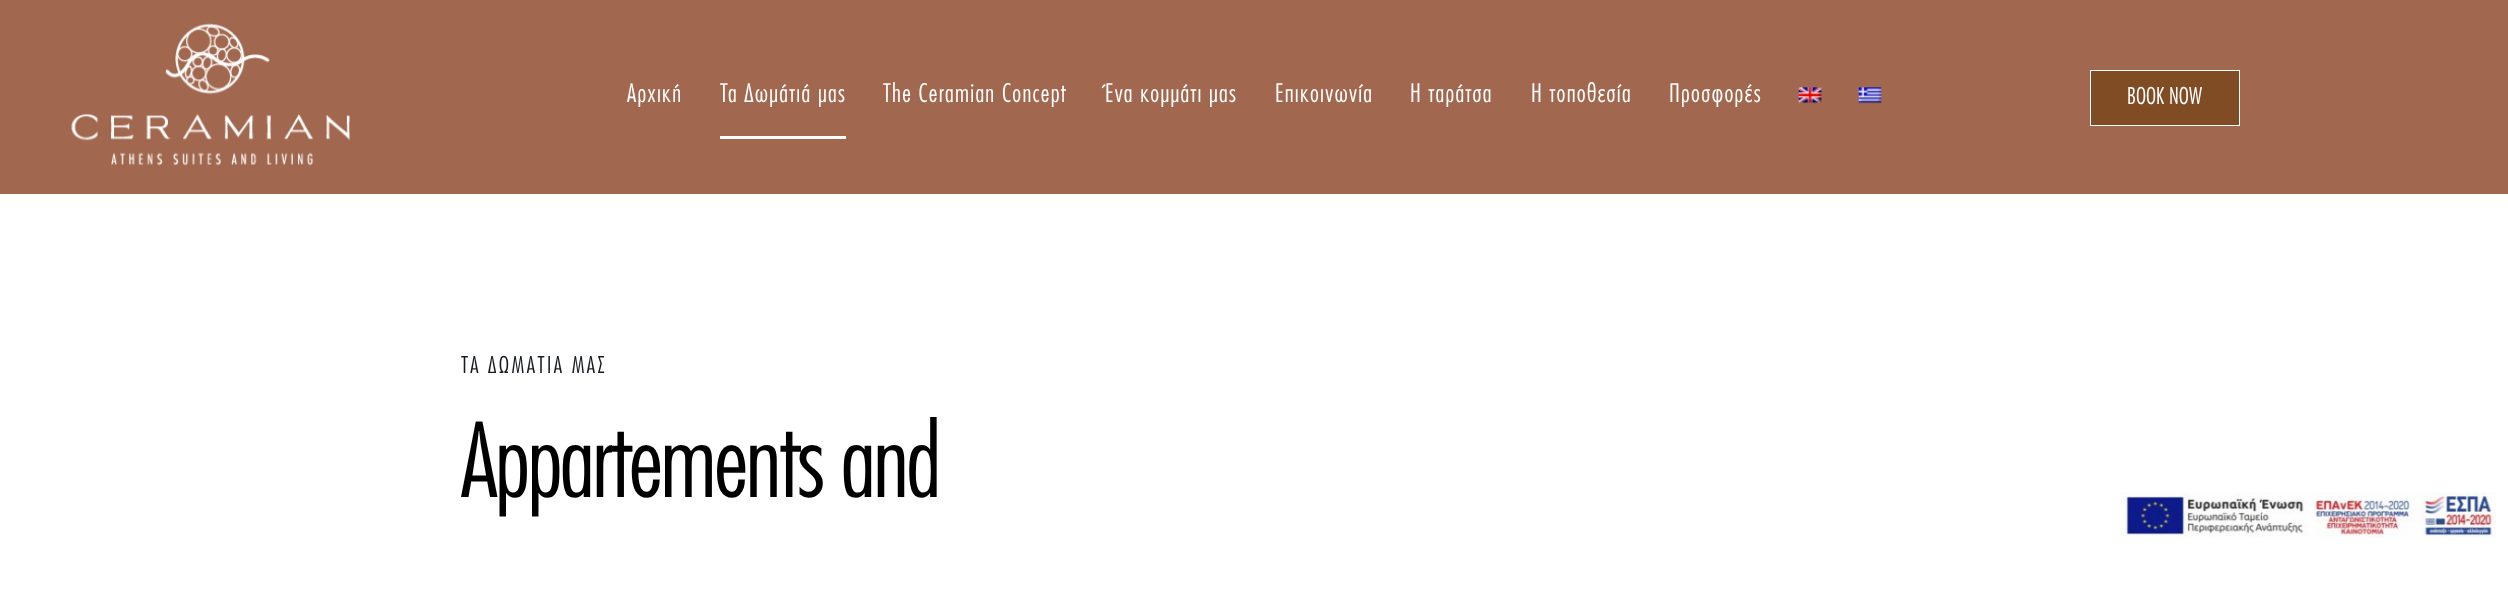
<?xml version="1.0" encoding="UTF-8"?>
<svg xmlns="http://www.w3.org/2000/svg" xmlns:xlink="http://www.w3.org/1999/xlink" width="2508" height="594">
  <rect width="100%" height="100%" fill="#ffffff" />
  <rect width="2508" height="194" fill="#a1684f" />
  <image x="71" y="23" width="279" height="143" xlink:href="image1.png" />
  <rect x="720" y="136" width="126" height="3" fill="#ffffff" />
  <image x="1798" y="87" width="24" height="17" xlink:href="image2.png" />
  <image x="1858" y="87" width="24" height="17" xlink:href="image3.png" />
  <rect x="2090.5" y="70.5" width="149" height="55" fill="#7f4c24" stroke="#ffffff" />
  <image x="2121" y="492" width="376" height="46" xlink:href="image4.png" />
  <text x="627" y="102" style="font-family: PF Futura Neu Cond; font-size: 25px; font-weight: 300; letter-spacing: 1.25px; fill: #ffffff">Αρχική</text>
  <text x="720" y="102" style="font-family: PF Futura Neu Cond; font-size: 25px; font-weight: 300; letter-spacing: 1.25px; fill: #ffffff">Τα Δωμάτιά μας</text>
  <text x="883" y="102" style="font-family: PF Futura Neu Cond; font-size: 25px; font-weight: 300; letter-spacing: 1.25px; fill: #ffffff">The Ceramian Concept</text>
  <text x="1105" y="102" style="font-family: PF Futura Neu Cond; font-size: 25px; font-weight: 300; letter-spacing: 1.25px; fill: #ffffff">Ένα κομμάτι μας</text>
  <text x="1275" y="102" style="font-family: PF Futura Neu Cond; font-size: 25px; font-weight: 300; letter-spacing: 1.25px; fill: #ffffff">Επικοινωνία</text>
  <text x="1410" y="102" style="font-family: PF Futura Neu Cond; font-size: 25px; font-weight: 300; letter-spacing: 1.25px; fill: #ffffff">Η ταράτσα</text>
  <text x="1531" y="102" style="font-family: PF Futura Neu Cond; font-size: 25px; font-weight: 300; letter-spacing: 1.25px; fill: #ffffff">Η τοποθεσία</text>
  <text x="1669" y="102" style="font-family: PF Futura Neu Cond; font-size: 25px; font-weight: 300; letter-spacing: 1.25px; fill: #ffffff">Προσφορές</text>
  <text x="2127" y="104" style="font-family: PF Futura Neu Cond; font-size: 22.5px; font-weight: 300; fill: #ffffff">BOOK NOW</text>
  <text x="461" y="373" style="font-family: PF Futura Neu Cond; font-size: 22.5px; font-weight: 300; letter-spacing: 2.5px; fill: #181b20">ΤΑ ΔΩΜΑΤΙΑ ΜΑΣ</text>
  <text x="461" y="497" style="font-family: PF Futura Neu Cond; font-size: 100px; font-weight: 300; letter-spacing: -2.5px; fill: #000000">Appartements and</text>
</svg>
